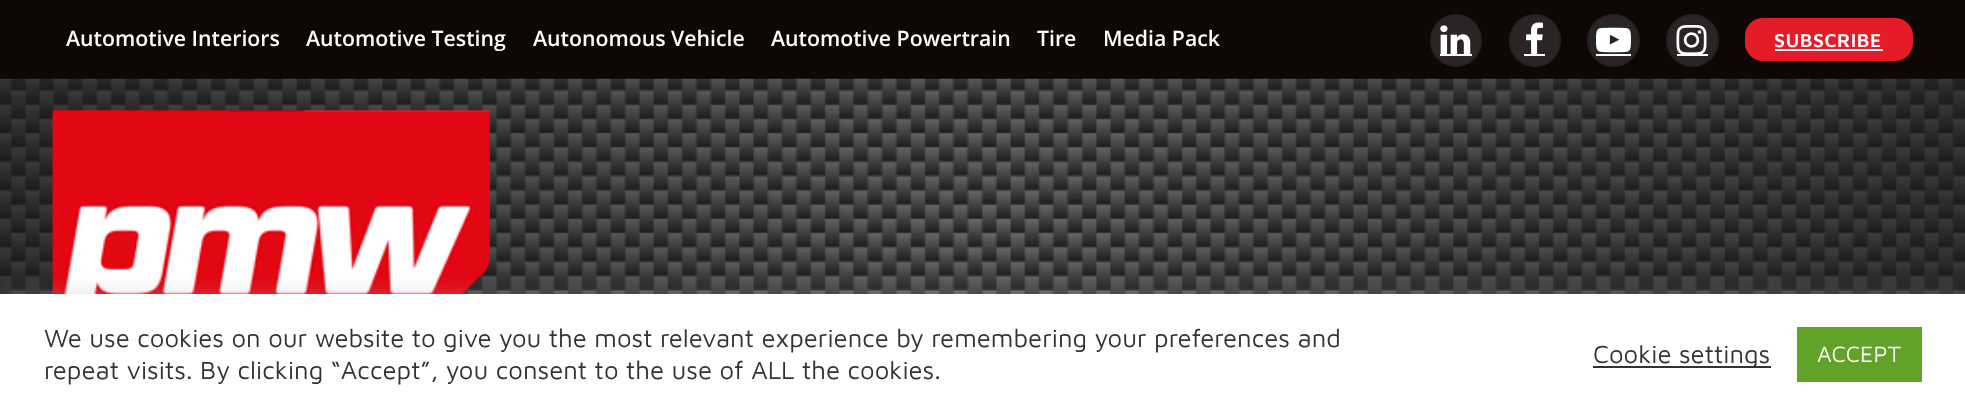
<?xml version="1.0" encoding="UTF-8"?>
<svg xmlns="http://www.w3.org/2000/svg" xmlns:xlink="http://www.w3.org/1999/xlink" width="1965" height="414">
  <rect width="100%" height="100%" fill="#0f0606" />
  <rect x="1430" y="14" width="52" height="53" rx="26" fill="#2c2424" />
  <rect x="1431" y="15" width="50" height="51" rx="25" fill="none" stroke="#000000" stroke-opacity="0.09" stroke-width="2" />
  <image x="1440" y="25" width="31" height="29" xlink:href="image1.png" />
  <rect x="1440" y="54" width="32" height="2" fill="#ffffff" />
  <rect x="1509" y="14" width="52" height="53" rx="26" fill="#2c2424" />
  <rect x="1510" y="15" width="50" height="51" rx="25" fill="none" stroke="#000000" stroke-opacity="0.09" stroke-width="2" />
  <image x="1526" y="22" width="17" height="32" xlink:href="image2.png" />
  <rect x="1524" y="54" width="21" height="2" fill="#ffffff" />
  <circle cx="1613.5" cy="40.5" r="26.5" fill="#2c2424" />
  <circle cx="1613.5" cy="40.5" r="25.5" fill="none" stroke="#000000" stroke-opacity="0.09" stroke-width="2" />
  <image x="1596" y="27" width="35" height="26" xlink:href="image3.png" />
  <rect x="1596" y="54" width="35" height="2" fill="#ffffff" />
  <circle cx="1692.5" cy="40.5" r="26.5" fill="#2c2424" />
  <circle cx="1692.5" cy="40.5" r="25.5" fill="none" stroke="#000000" stroke-opacity="0.09" stroke-width="2" />
  <image x="1676" y="25" width="31" height="29" xlink:href="image4.png" />
  <rect x="1677" y="54" width="31" height="2" fill="#ffffff" />
  <rect x="1745" y="18" width="168" height="43" rx="18" fill="#e51c28" />
  <rect x="1775" y="49" width="108" height="2" fill="#ffffff" />
  <image x="0" y="78" width="1965" height="216" xlink:href="image5.png" />
  <image x="52" y="110" width="438" height="184" xlink:href="image6.png" />
  <rect y="292" width="1965" height="121" fill="#acabab" fill-opacity="0.3" filter="blur(9px)" />
  <rect y="294" width="1965" height="120" fill="#ffffff" />
  <rect x="1593" y="366" width="178" height="2" fill="#333333" />
  <rect x="1797" y="327" width="125" height="55" fill="#61a229" />
  <text x="66" y="46" style="font-family: Open Sans; font-size: 21.25px; font-weight: 600; fill: #ffffff">Automotive Interiors</text>
  <text x="306" y="46" style="font-family: Open Sans; font-size: 21.25px; font-weight: 600; fill: #ffffff">Automotive Testing</text>
  <text x="533" y="46" style="font-family: Open Sans; font-size: 21.25px; font-weight: 600; fill: #ffffff">Autonomous Vehicle</text>
  <text x="771" y="46" style="font-family: Open Sans; font-size: 21.25px; font-weight: 600; fill: #ffffff">Automotive Powertrain</text>
  <text x="1037" y="46" style="font-family: Open Sans; font-size: 21.25px; font-weight: 600; fill: #ffffff">Tire</text>
  <text x="1103" y="46" style="font-family: Open Sans; font-size: 21.25px; font-weight: 600; fill: #ffffff">Media Pack</text>
  <text x="1774" y="47" style="font-family: Maven Pro; font-size: 19.25px; font-weight: 600; letter-spacing: 0.5px; fill: #ffffff">SUBSCRIBE</text>
  <text x="44" y="347" style="font-family: Maven Pro; font-size: 25.67px; fill: #333333">We use cookies on our website to give you the most relevant experience by remembering your preferences and</text>
  <text x="44" y="379" style="font-family: Maven Pro; font-size: 25.67px; fill: #333333">repeat visits. By clicking “Accept”, you consent to the use of ALL the cookies.</text>
  <text x="1593" y="363" style="font-family: Maven Pro; font-size: 25.67px; fill: #333333">Cookie settings</text>
  <text x="1817" y="362" style="font-family: Maven Pro; font-size: 23px; fill: #ffffff">ACCEPT</text>
</svg>
